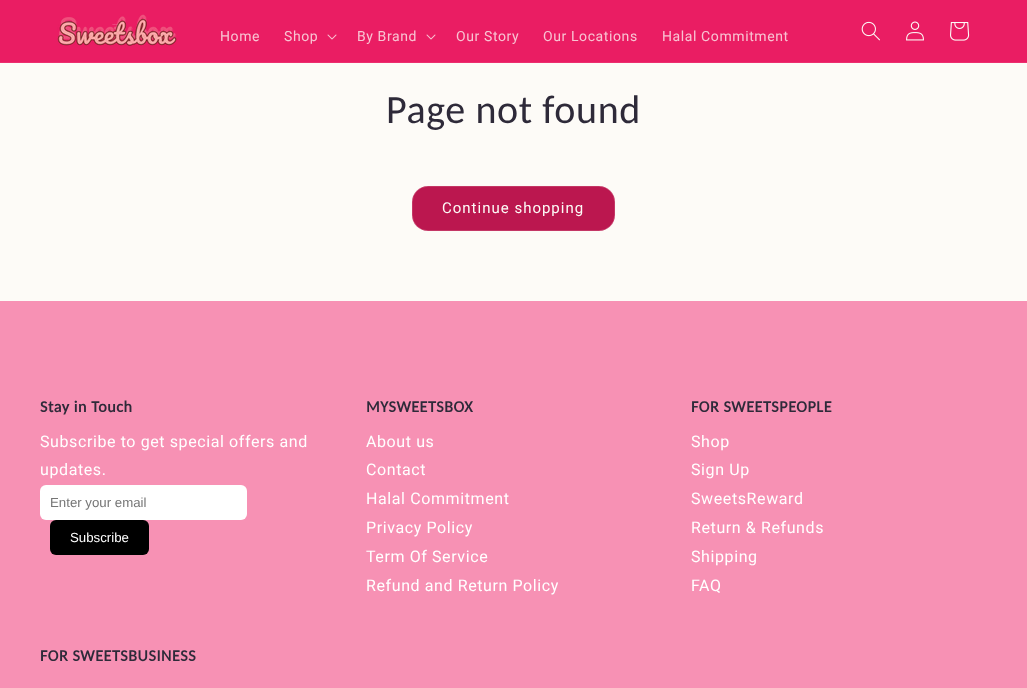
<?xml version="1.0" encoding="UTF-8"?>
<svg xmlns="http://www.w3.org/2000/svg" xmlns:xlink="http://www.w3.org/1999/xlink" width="1027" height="688">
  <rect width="100%" height="100%" fill="#fdfbf7" />
  <rect width="1027" height="62" fill="#ea1d63" />
  <rect y="62" width="1027" height="1" fill="#ec2f6f" />
  <image x="57" y="14" width="120" height="32" xlink:href="image1.png" />
  <image x="327" y="34" width="10" height="6" xlink:href="image2.png" />
  <image x="426" y="34" width="10" height="6" xlink:href="image2.png" />
  <image x="861" y="21" width="19" height="20" xlink:href="image3.png" />
  <image x="906" y="21" width="18" height="20" xlink:href="image4.png" />
  <image x="950" y="22" width="20" height="19" xlink:href="image5.png" />
  <rect x="412" y="186" width="203" height="45" rx="16" fill="#bb174f" />
  <rect x="412.15" y="186.15" width="202.7" height="44.7" rx="15.85" fill="none" stroke="#fdfbf7" stroke-opacity="0.75" stroke-width="0.3" />
  <rect y="301" width="1027" height="387" fill="#f791b4" />
  <rect x="40" y="485" width="207" height="35" rx="6" fill="#ffffff" />
  <rect x="50" y="520" width="99" height="35" rx="6" fill="#000000" />
  <text x="220" y="41" style="font-family: Roboto; font-size: 14px; letter-spacing: 0.6px; fill: #f8c4d2">Home</text>
  <text x="284" y="41" style="font-family: Roboto; font-size: 14px; letter-spacing: 0.6px; fill: #f8c4d2">Shop</text>
  <text x="357" y="41" style="font-family: Roboto; font-size: 14px; letter-spacing: 0.6px; fill: #f8c4d2">By Brand</text>
  <text x="456" y="41" style="font-family: Roboto; font-size: 14px; letter-spacing: 0.6px; fill: #f8c4d2">Our Story</text>
  <text x="543" y="41" style="font-family: Roboto; font-size: 14px; letter-spacing: 0.6px; fill: #f8c4d2">Our Locations</text>
  <text x="662" y="41" style="font-family: Roboto; font-size: 14px; letter-spacing: 0.6px; fill: #f8c4d2">Halal Commitment</text>
  <text x="386" y="123" style="font-family: Carlito; font-size: 40px; letter-spacing: 0.6px; fill: #2e2a39">Page not found</text>
  <text x="442" y="213" style="font-family: Roboto; font-size: 15px; letter-spacing: 1px; fill: #fdfbf7">Continue shopping</text>
  <text x="40" y="412" style="font-family: Carlito; font-size: 16px; font-weight: bold; letter-spacing: 0.6px; fill: #2e2a39">Stay in Touch</text>
  <text x="40" y="447" style="font-family: Roboto; font-size: 16px; letter-spacing: 0.6px; fill: #ffffff">Subscribe to get special offers and</text>
  <text x="40" y="475" style="font-family: Roboto; font-size: 16px; letter-spacing: 0.6px; fill: #ffffff">updates.</text>
  <text x="50" y="507" style="font-family: Liberation Sans; font-size: 13.25px; fill: #757575">Enter your email</text>
  <text x="70" y="542" style="font-family: Liberation Sans; font-size: 13.25px; fill: #ffffff">Subscribe</text>
  <text x="366" y="412" style="font-family: Carlito; font-size: 16px; font-weight: bold; letter-spacing: 0.6px; fill: #2e2a39">MYSWEETSBOX</text>
  <text x="366" y="447" style="font-family: Roboto; font-size: 16px; letter-spacing: 0.6px; fill: #ffffff">About us</text>
  <text x="366" y="475" style="font-family: Roboto; font-size: 16px; letter-spacing: 0.6px; fill: #ffffff">Contact</text>
  <text x="366" y="504" style="font-family: Roboto; font-size: 16px; letter-spacing: 0.6px; fill: #ffffff">Halal Commitment</text>
  <text x="366" y="533" style="font-family: Roboto; font-size: 16px; letter-spacing: 0.6px; fill: #ffffff">Privacy Policy</text>
  <text x="366" y="562" style="font-family: Roboto; font-size: 16px; letter-spacing: 0.6px; fill: #ffffff">Term Of Service</text>
  <text x="366" y="591" style="font-family: Roboto; font-size: 16px; letter-spacing: 0.6px; fill: #ffffff">Refund and Return Policy</text>
  <text x="691" y="412" style="font-family: Carlito; font-size: 16px; font-weight: bold; letter-spacing: 0.6px; fill: #2e2a39">FOR SWEETSPEOPLE</text>
  <text x="691" y="447" style="font-family: Roboto; font-size: 16px; letter-spacing: 0.6px; fill: #ffffff">Shop</text>
  <text x="691" y="475" style="font-family: Roboto; font-size: 16px; letter-spacing: 0.6px; fill: #ffffff">Sign Up</text>
  <text x="691" y="504" style="font-family: Roboto; font-size: 16px; letter-spacing: 0.6px; fill: #ffffff">SweetsReward</text>
  <text x="691" y="533" style="font-family: Roboto; font-size: 16px; letter-spacing: 0.6px; fill: #ffffff">Return &amp; Refunds</text>
  <text x="691" y="562" style="font-family: Roboto; font-size: 16px; letter-spacing: 0.6px; fill: #ffffff">Shipping</text>
  <text x="691" y="591" style="font-family: Roboto; font-size: 16px; letter-spacing: 0.6px; fill: #ffffff">FAQ</text>
  <text x="40" y="661" style="font-family: Carlito; font-size: 16px; font-weight: bold; letter-spacing: 0.6px; fill: #2e2a39">FOR SWEETSBUSINESS</text>
</svg>
